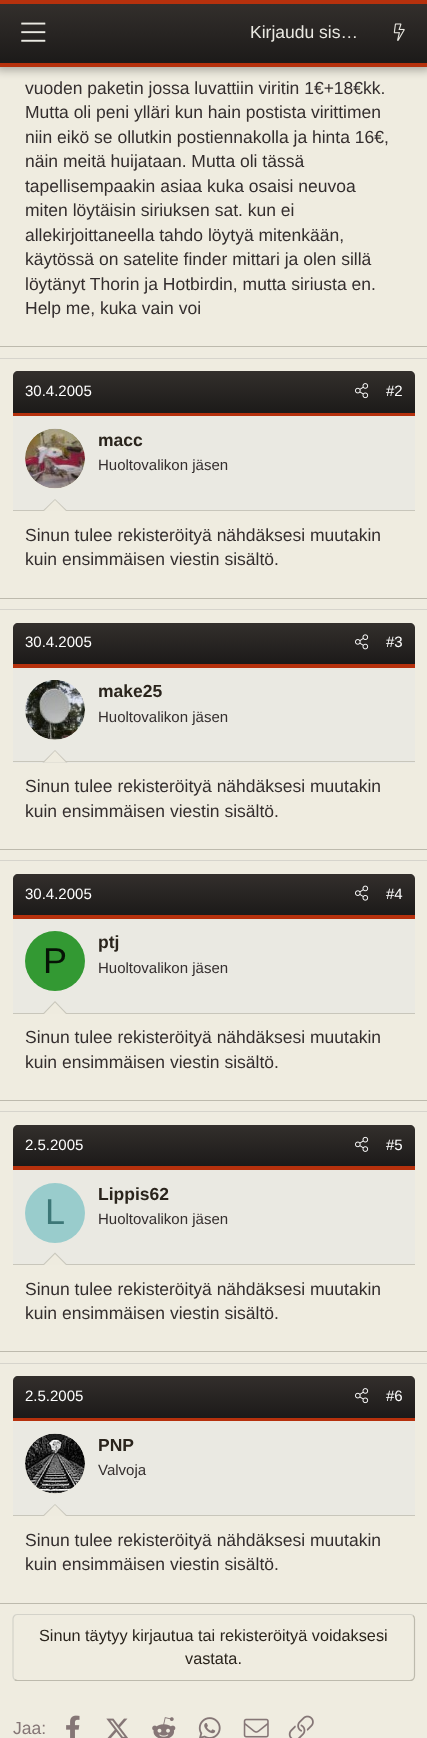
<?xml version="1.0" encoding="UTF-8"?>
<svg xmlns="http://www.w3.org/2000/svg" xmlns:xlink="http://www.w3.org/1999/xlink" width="427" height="1738">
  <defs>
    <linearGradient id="g1" gradientUnits="userSpaceOnUse" x1="214" y1="3.7" x2="214" y2="63"><stop offset="0" stop-color="#332f2c" /><stop offset="1" stop-color="#1c1a19" /></linearGradient>
    <linearGradient id="g2" gradientUnits="userSpaceOnUse" x1="214" y1="371" x2="214" y2="413"><stop offset="0" stop-color="#332f2c" /><stop offset="1" stop-color="#1c1a19" /></linearGradient>
    <linearGradient id="g3" gradientUnits="userSpaceOnUse" x1="214" y1="623" x2="214" y2="664"><stop offset="0" stop-color="#332f2c" /><stop offset="1" stop-color="#1c1a19" /></linearGradient>
    <linearGradient id="g4" gradientUnits="userSpaceOnUse" x1="214" y1="874" x2="214" y2="915"><stop offset="0" stop-color="#332f2c" /><stop offset="1" stop-color="#1c1a19" /></linearGradient>
    <linearGradient id="g5" gradientUnits="userSpaceOnUse" x1="214" y1="1125" x2="214" y2="1166"><stop offset="0" stop-color="#332f2c" /><stop offset="1" stop-color="#1c1a19" /></linearGradient>
    <linearGradient id="g6" gradientUnits="userSpaceOnUse" x1="214" y1="1376" x2="214" y2="1418"><stop offset="0" stop-color="#332f2c" /><stop offset="1" stop-color="#1c1a19" /></linearGradient>
  </defs>
  <rect width="100%" height="100%" fill="#efece0" />
  <rect x="-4" y="-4" width="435" height="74" fill="#000000" fill-opacity="0.3" filter="blur(5px)" />
  <rect y="4" width="427" height="59" fill="url(#g1)" />
  <rect width="427" height="4" fill="#b6310d" />
  <rect y="63" width="427" height="4" fill="#b6310d" />
  <image x="21" y="22" width="25" height="20" xlink:href="image1.png" />
  <image x="393" y="23" width="12" height="18" xlink:href="image2.png" />
  <rect y="346" width="427" height="1" fill="#bdbaad" />
  <rect y="358" width="427" height="1" fill="#d6d4cc" />
  <rect y="598" width="427" height="1" fill="#bdbaad" />
  <path d="M 18 371 h 392 c 3 0 5 2 5 5 v 37 h -402 v -37 c 0 -3 2 -5 5 -5 z" fill="url(#g2)" />
  <rect x="13" y="413" width="402" height="3" fill="#b6310d" />
  <image x="355" y="383" width="14" height="16" xlink:href="image3.png" />
  <rect x="13" y="416" width="402" height="94" fill="#eae9e2" />
  <rect x="13" y="510" width="402" height="1" fill="#c8c6bb" />
  <circle cx="55" cy="459" r="30" fill="#eeebdf" />
  <image x="25" y="428" width="60" height="61" xlink:href="image4.png" />
  <path d="M 67.5 511 h -25 l 12.5 -12 z" fill="#c8c6bb" />
  <path d="M 66 511 h -22 l 11 -11 z" fill="#eeebdf" />
  <rect y="609" width="427" height="1" fill="#d6d4cc" />
  <rect y="849" width="427" height="1" fill="#bdbaad" />
  <path d="M 18 623 h 392 c 3 0 5 2 5 5 v 36 h -402 v -36 c 0 -3 2 -5 5 -5 z" fill="url(#g3)" />
  <rect x="13" y="664" width="402" height="4" fill="#b6310d" />
  <image x="355" y="634" width="14" height="16" xlink:href="image5.png" />
  <rect x="13" y="668" width="402" height="95" fill="#eae9e2" />
  <rect x="13" y="761" width="402" height="1" fill="#c8c6bb" />
  <circle cx="55" cy="710" r="30" fill="#eeebdf" />
  <image x="25" y="680" width="60" height="60" xlink:href="image6.png" />
  <path d="M 67.5 762.5 h -25 l 12.5 -12.5 z" fill="#c8c6bb" />
  <path d="M 66 762.5 h -22 l 11 -11.5 z" fill="#eeebdf" />
  <rect y="860" width="427" height="1" fill="#d6d4cc" />
  <rect y="1100" width="427" height="1" fill="#bdbaad" />
  <path d="M 18 874 h 392 c 3 0 5 2 5 5 v 36 h -402 v -36 c 0 -3 2 -5 5 -5 z" fill="url(#g4)" />
  <rect x="13" y="915" width="402" height="4" fill="#b6310d" />
  <image x="355" y="885" width="14" height="16" xlink:href="image7.png" />
  <rect x="13" y="919" width="402" height="94" fill="#eae9e2" />
  <rect x="13" y="1013" width="402" height="1" fill="#c8c6bb" />
  <circle cx="55" cy="961" r="30" fill="#339933" />
  <path d="M 67.5 1014 h -25 l 12.5 -13 z" fill="#c8c6bb" />
  <path d="M 66 1014 h -22 l 11 -11.5 z" fill="#eeebdf" />
  <rect y="1111" width="427" height="1" fill="#d6d4cc" />
  <rect y="1351" width="427" height="1" fill="#bdbaad" />
  <path d="M 18 1125 h 392 c 3 0 5 2 5 5 v 36 h -402 v -36 c 0 -3 2 -5 5 -5 z" fill="url(#g5)" />
  <rect x="13" y="1166" width="402" height="4" fill="#b6310d" />
  <image x="355" y="1136" width="14" height="16" xlink:href="image8.png" />
  <rect x="13" y="1170" width="402" height="94" fill="#eae9e2" />
  <rect x="13" y="1264" width="402" height="1" fill="#c8c6bb" />
  <circle cx="55" cy="1213" r="30" fill="#99cccc" />
  <path d="M 67.5 1265 h -25 l 12.5 -12.5 z" fill="#c8c6bb" />
  <path d="M 66 1265 h -22 l 11 -11 z" fill="#eeebdf" />
  <rect y="1363" width="427" height="1" fill="#d6d4cc" />
  <rect y="1603" width="427" height="1" fill="#bdbaad" />
  <path d="M 18 1376 h 392 c 3 0 5 2 5 5 v 37 h -402 v -37 c 0 -3 2 -5 5 -5 z" fill="url(#g6)" />
  <rect x="13" y="1418" width="402" height="3" fill="#b6310d" />
  <image x="355" y="1388" width="14" height="16" xlink:href="image3.png" />
  <rect x="13" y="1421" width="402" height="94" fill="#eae9e2" />
  <rect x="13" y="1515" width="402" height="1" fill="#c8c6bb" />
  <circle cx="55" cy="1464" r="30" fill="#eeebdf" />
  <image x="25" y="1433" width="60" height="61" xlink:href="image9.png" />
  <path d="M 67.5 1516 h -25 l 12.5 -12 z" fill="#c8c6bb" />
  <path d="M 66 1516 h -22 l 11 -11 z" fill="#eeebdf" />
  <path d="M 413 1615.5 c 1 1 1.5 2 1.5 3.5 v 57 c 0 1.5 -0.5 2.5 -1.5 3.5 c -0.5 0.5 -2 1 -3 1 h -392.5 c -1 0 -2.5 -0.5 -3 -1" fill="none" stroke="#bdbaad" stroke-width="1.2" />
  <path d="M 14.5 1679.5 c -1 -1 -1.5 -2 -1.5 -3.5 v -57 c 0 -1.5 0.5 -2.5 1.5 -3.5 c 0.5 -0.5 2 -1 3 -1 h 392.5 c 1 0 2.5 0.5 3 1" fill="none" stroke="#d3d2c9" stroke-width="1.2" />
  <image x="66" y="1715" width="14" height="23" xlink:href="image10.png" />
  <image x="106" y="1718" width="22" height="20" xlink:href="image11.png" />
  <image x="152" y="1717" width="24" height="21" xlink:href="image12.png" />
  <image x="198" y="1717" width="23" height="21" xlink:href="image13.png" />
  <image x="243" y="1718" width="26" height="20" xlink:href="image14.png" />
  <image x="288" y="1715" width="26" height="23" xlink:href="image15.png" />
  <text x="250" y="38" style="font-family: Liberation Sans; font-size: 17.5px; fill: #eae9e2">Kirjaudu sis…</text>
  <text x="25" y="94" style="font-family: Liberation Sans; font-size: 17.5px; fill: #342e2e">vuoden paketin jossa luvattiin viritin 1€+18€kk.</text>
  <text x="25" y="118" style="font-family: Liberation Sans; font-size: 17.5px; fill: #342e2e">Mutta oli peni ylläri kun hain postista virittimen</text>
  <text x="25" y="143" style="font-family: Liberation Sans; font-size: 17.5px; fill: #342e2e">niin eikö se ollutkin postiennakolla ja hinta 16€,</text>
  <text x="25" y="167" style="font-family: Liberation Sans; font-size: 17.5px; fill: #342e2e">näin meitä huijataan. Mutta oli tässä</text>
  <text x="25" y="192" style="font-family: Liberation Sans; font-size: 17.5px; fill: #342e2e">tapellisempaakin asiaa kuka osaisi neuvoa</text>
  <text x="25" y="216" style="font-family: Liberation Sans; font-size: 17.5px; fill: #342e2e">miten löytäisin siriuksen sat. kun ei</text>
  <text x="25" y="241" style="font-family: Liberation Sans; font-size: 17.5px; fill: #342e2e">allekirjoittaneella tahdo löytyä mitenkään,</text>
  <text x="25" y="265" style="font-family: Liberation Sans; font-size: 17.5px; fill: #342e2e">käytössä on satelite finder mittari ja olen sillä</text>
  <text x="25" y="290" style="font-family: Liberation Sans; font-size: 17.5px; fill: #342e2e">löytänyt Thorin ja Hotbirdin, mutta siriusta en.</text>
  <text x="25" y="314" style="font-family: Liberation Sans; font-size: 17.5px; fill: #342e2e">Help me, kuka vain voi</text>
  <text x="25" y="396" style="font-family: Liberation Sans; font-size: 15px; fill: #ffffff">30.4.2005</text>
  <text x="386" y="396" style="font-family: Liberation Sans; font-size: 15px; fill: #ffffff">#2</text>
  <text x="98" y="446" style="font-family: Liberation Sans; font-size: 17.5px; font-weight: bold; fill: #2a241c">macc</text>
  <text x="98" y="470" style="font-family: Liberation Sans; font-size: 15px; fill: #342e2e">Huoltovalikon jäsen</text>
  <text x="25" y="541" style="font-family: Liberation Sans; font-size: 17.5px; fill: #342e2e">Sinun tulee rekisteröityä nähdäksesi muutakin</text>
  <text x="25" y="565" style="font-family: Liberation Sans; font-size: 17.5px; fill: #342e2e">kuin ensimmäisen viestin sisältö.</text>
  <text x="25" y="647" style="font-family: Liberation Sans; font-size: 15px; fill: #ffffff">30.4.2005</text>
  <text x="386" y="647" style="font-family: Liberation Sans; font-size: 15px; fill: #ffffff">#3</text>
  <text x="98" y="697" style="font-family: Liberation Sans; font-size: 17.5px; font-weight: bold; fill: #2a241c">make25</text>
  <text x="98" y="722" style="font-family: Liberation Sans; font-size: 15px; fill: #342e2e">Huoltovalikon jäsen</text>
  <text x="25" y="792" style="font-family: Liberation Sans; font-size: 17.5px; fill: #342e2e">Sinun tulee rekisteröityä nähdäksesi muutakin</text>
  <text x="25" y="817" style="font-family: Liberation Sans; font-size: 17.5px; fill: #342e2e">kuin ensimmäisen viestin sisältö.</text>
  <text x="25" y="899" style="font-family: Liberation Sans; font-size: 15px; fill: #ffffff">30.4.2005</text>
  <text x="386" y="899" style="font-family: Liberation Sans; font-size: 15px; fill: #ffffff">#4</text>
  <text x="43" y="973" style="font-family: Liberation Sans; font-size: 36px; fill: #061306">P</text>
  <text x="98" y="948" style="font-family: Liberation Sans; font-size: 17.5px; font-weight: bold; fill: #2a241c">ptj</text>
  <text x="98" y="973" style="font-family: Liberation Sans; font-size: 15px; fill: #342e2e">Huoltovalikon jäsen</text>
  <text x="25" y="1043" style="font-family: Liberation Sans; font-size: 17.5px; fill: #342e2e">Sinun tulee rekisteröityä nähdäksesi muutakin</text>
  <text x="25" y="1068" style="font-family: Liberation Sans; font-size: 17.5px; fill: #342e2e">kuin ensimmäisen viestin sisältö.</text>
  <text x="25" y="1150" style="font-family: Liberation Sans; font-size: 15px; fill: #ffffff">2.5.2005</text>
  <text x="386" y="1150" style="font-family: Liberation Sans; font-size: 15px; fill: #ffffff">#5</text>
  <text x="45" y="1224" style="font-family: Liberation Sans; font-size: 36px; fill: #3c7777">L</text>
  <text x="98" y="1200" style="font-family: Liberation Sans; font-size: 17.5px; font-weight: bold; fill: #2a241c">Lippis62</text>
  <text x="98" y="1224" style="font-family: Liberation Sans; font-size: 15px; fill: #342e2e">Huoltovalikon jäsen</text>
  <text x="25" y="1295" style="font-family: Liberation Sans; font-size: 17.5px; fill: #342e2e">Sinun tulee rekisteröityä nähdäksesi muutakin</text>
  <text x="25" y="1319" style="font-family: Liberation Sans; font-size: 17.5px; fill: #342e2e">kuin ensimmäisen viestin sisältö.</text>
  <text x="25" y="1401" style="font-family: Liberation Sans; font-size: 15px; fill: #ffffff">2.5.2005</text>
  <text x="386" y="1401" style="font-family: Liberation Sans; font-size: 15px; fill: #ffffff">#6</text>
  <text x="98" y="1451" style="font-family: Liberation Sans; font-size: 17.5px; font-weight: bold; fill: #2a241c">PNP</text>
  <text x="98" y="1475" style="font-family: Liberation Sans; font-size: 15px; fill: #342e2e">Valvoja</text>
  <text x="25" y="1546" style="font-family: Liberation Sans; font-size: 17.5px; fill: #342e2e">Sinun tulee rekisteröityä nähdäksesi muutakin</text>
  <text x="25" y="1570" style="font-family: Liberation Sans; font-size: 17.5px; fill: #342e2e">kuin ensimmäisen viestin sisältö.</text>
  <text x="39" y="1641" style="font-family: Liberation Sans; font-size: 16.25px; fill: #2a241c">Sinun täytyy kirjautua tai rekisteröityä voidaksesi</text>
  <text x="185" y="1664" style="font-family: Liberation Sans; font-size: 16.25px; fill: #2a241c">vastata.</text>
  <text x="13" y="1734" style="font-family: Liberation Sans; font-size: 17.5px; fill: #857676">Jaa:</text>
</svg>
